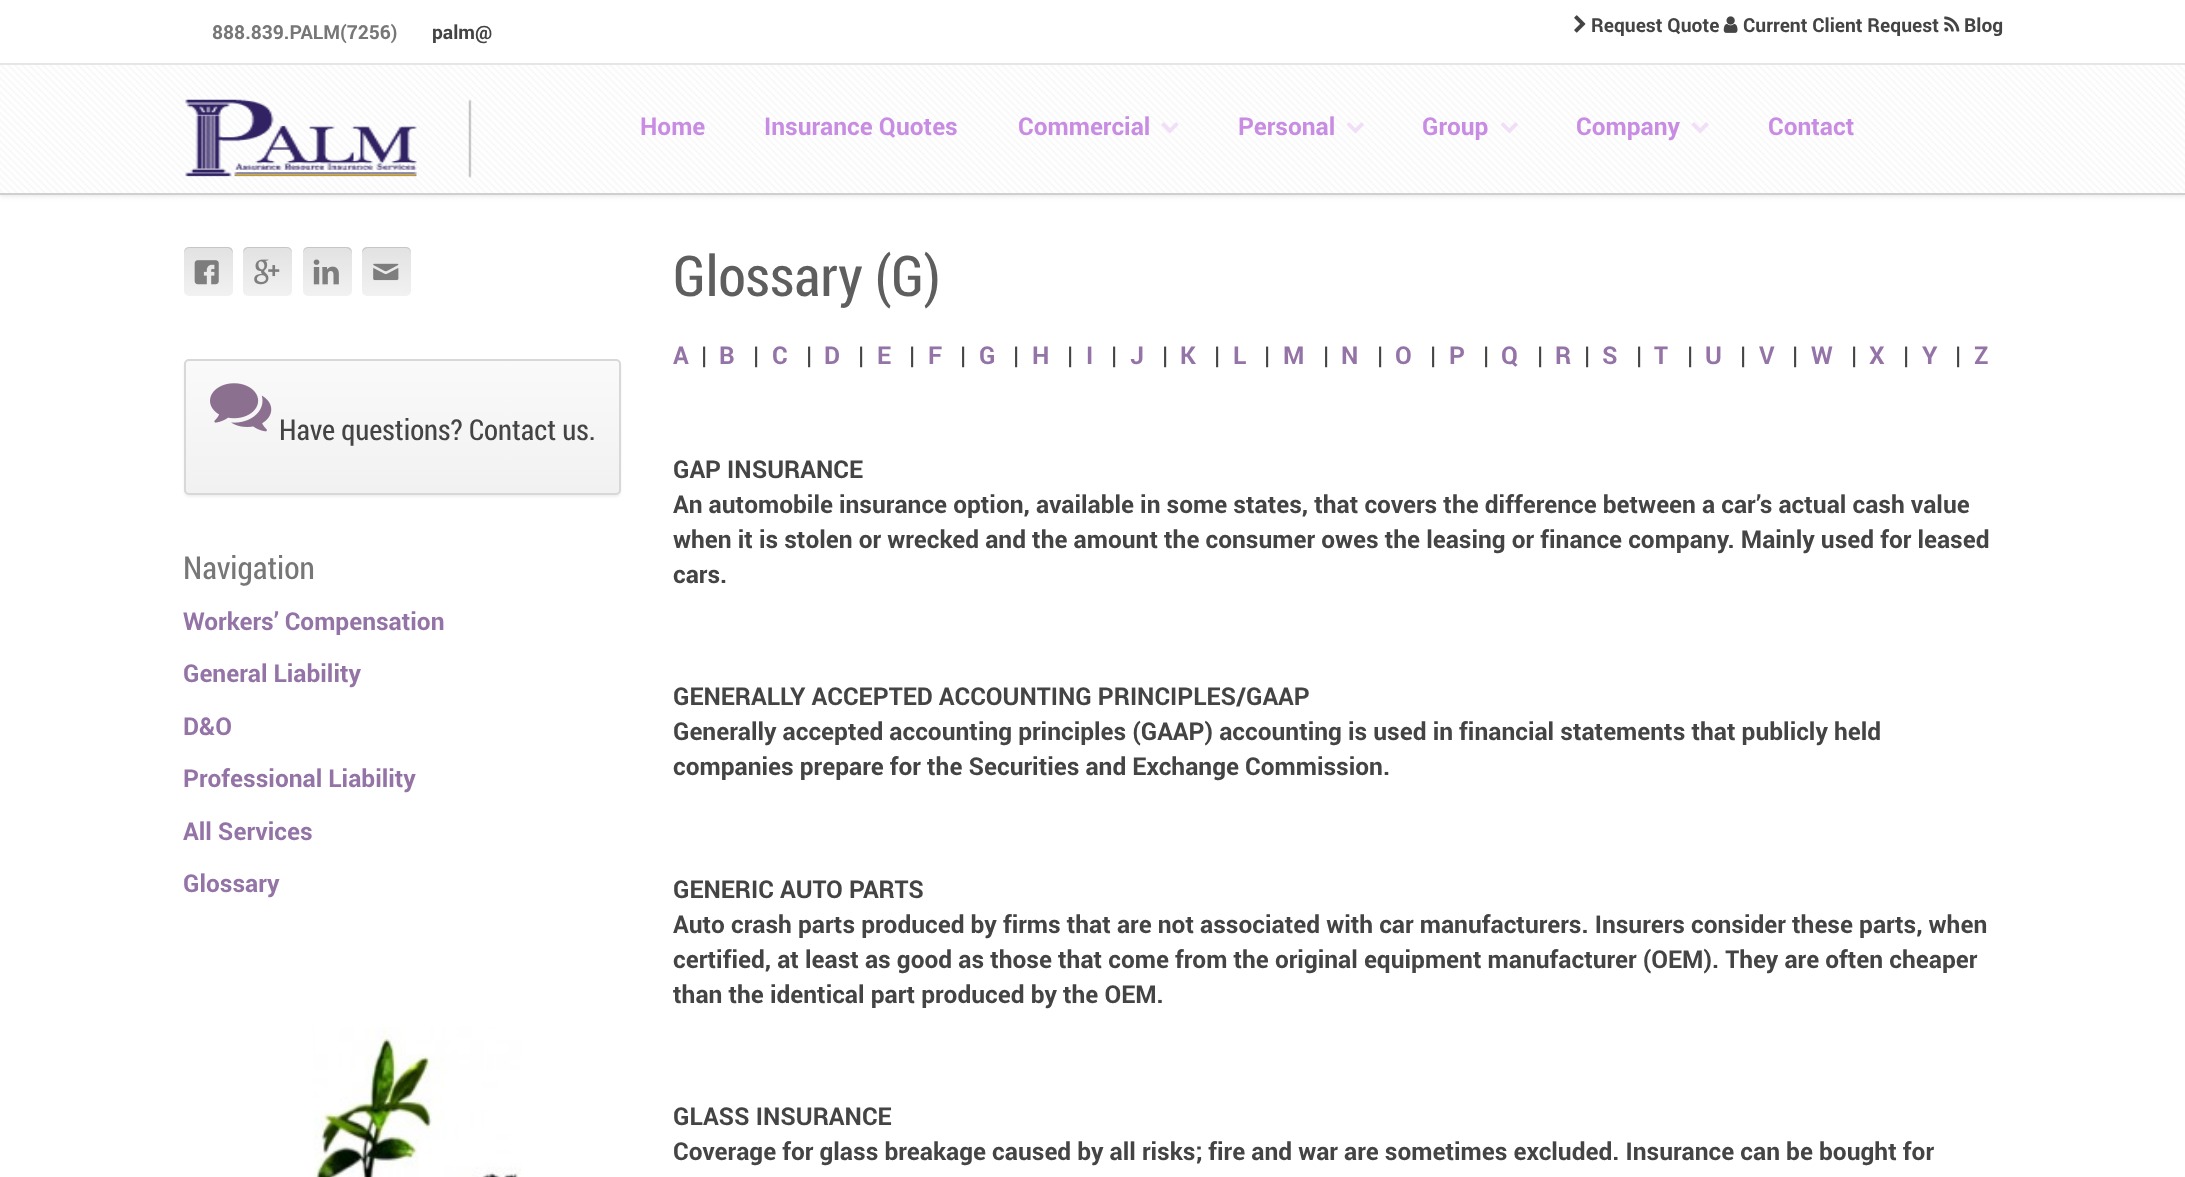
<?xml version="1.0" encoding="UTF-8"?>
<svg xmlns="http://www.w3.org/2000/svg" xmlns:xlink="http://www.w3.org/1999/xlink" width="2185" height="1177">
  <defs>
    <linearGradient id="g1" gradientUnits="userSpaceOnUse" x1="208" y1="247" x2="208" y2="296"><stop offset="0" stop-color="#595959" stop-opacity="0.14" /><stop offset="1" stop-color="#595959" stop-opacity="0.04" /></linearGradient>
    <linearGradient id="g2" gradientUnits="userSpaceOnUse" x1="268" y1="247" x2="268" y2="296"><stop offset="0" stop-color="#595959" stop-opacity="0.14" /><stop offset="1" stop-color="#595959" stop-opacity="0.04" /></linearGradient>
    <linearGradient id="g3" gradientUnits="userSpaceOnUse" x1="327" y1="247" x2="327" y2="296"><stop offset="0" stop-color="#595959" stop-opacity="0.14" /><stop offset="1" stop-color="#595959" stop-opacity="0.04" /></linearGradient>
    <linearGradient id="g4" gradientUnits="userSpaceOnUse" x1="387" y1="247" x2="387" y2="296"><stop offset="0" stop-color="#595959" stop-opacity="0.14" /><stop offset="1" stop-color="#595959" stop-opacity="0.04" /></linearGradient>
    <clipPath id="clip1"><rect x="184" y="359" width="437" height="136" rx="5" /></clipPath>
    <linearGradient id="g5" gradientUnits="userSpaceOnUse" x1="403" y1="361" x2="403" y2="494"><stop offset="0" stop-color="#fafafa" /><stop offset="1" stop-color="#f1f1f1" /></linearGradient>
  </defs>
  <rect width="100%" height="100%" fill="#ffffff" />
  <rect y="67" width="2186" height="129" fill="#000000" fill-opacity="0.1" filter="blur(2.5px)" />
  <rect y="63" width="2185" height="2" fill="#e6e6e6" />
  <image x="1574" y="15" width="12" height="18" xlink:href="image1.png" />
  <image x="1723" y="16" width="15" height="17" xlink:href="image2.png" />
  <image x="1944" y="16" width="16" height="16" xlink:href="image3.png" />
  <image x="0" y="65" width="2185" height="128" xlink:href="image4.png" />
  <rect y="193" width="2185" height="2" fill="#cfcfcf" />
  <image x="185" y="99" width="287" height="79" xlink:href="image5.png" />
  <image x="1161" y="122" width="18" height="12" xlink:href="image6.png" />
  <image x="1346" y="122" width="18" height="12" xlink:href="image7.png" />
  <image x="1500" y="122" width="18" height="12" xlink:href="image8.png" />
  <image x="1691" y="122" width="18" height="12" xlink:href="image9.png" />
  <rect x="184" y="247" width="49" height="49" rx="5" fill="#f8f8f8" />
  <rect x="184" y="247" width="49" height="49" rx="5" fill="url(#g1)" />
  <path d="M 189 248 h 39 c 2 0 5 3 5 6 c 0 -8 -4 -7 -11 -7 h -26 c -8 0 -12 -1 -12 7 c 0 -3 2 -6 5 -6 z" fill="#595959" fill-opacity="0.2" />
  <image x="194" y="260" width="25" height="25" xlink:href="image10.png" />
  <rect x="243" y="247" width="49" height="49" rx="5" fill="#f8f8f8" />
  <rect x="243" y="247" width="49" height="49" rx="5" fill="url(#g2)" />
  <path d="M 248 248 h 39 c 3 0 5 3 5 6 c 0 -8 -4 -7 -12 -7 h -26 c -7 0 -11 -1 -11 7 c 0 -3 3 -6 5 -6 z" fill="#595959" fill-opacity="0.2" />
  <image x="254" y="259" width="26" height="26" xlink:href="image11.png" />
  <rect x="303" y="247" width="49" height="49" rx="5" fill="#f8f8f8" />
  <rect x="303" y="247" width="49" height="49" rx="5" fill="url(#g3)" />
  <path d="M 308 248 h 38 c 3 0 6 3 6 6 c 0 -8 -4 -7 -12 -7 h -26 c -7 0 -11 -1 -11 7 c 0 -3 2 -6 5 -6 z" fill="#595959" fill-opacity="0.2" />
  <image x="313" y="259" width="26" height="26" xlink:href="image12.png" />
  <rect x="362" y="247" width="49" height="49" rx="5" fill="#f8f8f8" />
  <rect x="362" y="247" width="49" height="49" rx="5" fill="url(#g4)" />
  <path d="M 368 248 h 38 c 3 0 5 3 5 6 c 0 -8 -4 -7 -11 -7 h -26 c -8 0 -12 -1 -12 7 c 0 -3 3 -6 6 -6 z" fill="#595959" fill-opacity="0.2" />
  <image x="373" y="263" width="26" height="18" xlink:href="image13.png" />
  <rect x="184" y="361" width="437" height="136" rx="5" fill="#000000" fill-opacity="0.06" filter="blur(1px)" />
  <g clip-path="url(#clip1)">
    <rect x="184" y="361" width="437" height="133" fill="url(#g5)" />
  </g>
  <rect x="185" y="360" width="435" height="134" rx="4" fill="none" stroke="#d8d8d8" stroke-width="2" />
  <image x="210" y="383" width="62" height="49" xlink:href="image14.png" />
  <image x="313" y="1027" width="208" height="150" xlink:href="image15.png" />
  <text x="212" y="39" style="font-family: Roboto; font-size: 19.25px; font-weight: bold; fill: #777777">888.839.PALM(7256)</text>
  <text x="432" y="39" style="font-family: Roboto; font-size: 19.25px; font-weight: bold; fill: #444444">palm@</text>
  <text x="1591" y="32" style="font-family: Roboto; font-size: 19.25px; font-weight: bold; fill: #444444">Request Quote</text>
  <text x="1743" y="32" style="font-family: Roboto; font-size: 19.25px; font-weight: bold; fill: #444444">Current Client Request</text>
  <text x="1964" y="32" style="font-family: Roboto; font-size: 19.25px; font-weight: bold; fill: #444444">Blog</text>
  <text x="640" y="135" style="font-family: Roboto; font-size: 24.5px; font-weight: bold; fill: #c88de3">Home</text>
  <text x="764" y="135" style="font-family: Roboto; font-size: 24.5px; font-weight: bold; fill: #c88de3">Insurance Quotes</text>
  <text x="1018" y="135" style="font-family: Roboto; font-size: 24.5px; font-weight: bold; fill: #c88de3">Commercial</text>
  <text x="1238" y="135" style="font-family: Roboto; font-size: 24.5px; font-weight: bold; fill: #c88de3">Personal</text>
  <text x="1422" y="135" style="font-family: Roboto; font-size: 24.5px; font-weight: bold; fill: #c88de3">Group</text>
  <text x="1576" y="135" style="font-family: Roboto; font-size: 24.5px; font-weight: bold; fill: #c88de3">Company</text>
  <text x="1768" y="135" style="font-family: Roboto; font-size: 24.5px; font-weight: bold; fill: #c88de3">Contact</text>
  <text x="279" y="440" style="font-family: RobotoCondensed; font-size: 28.75px; fill: #444444">Have questions? Contact us.</text>
  <text x="183" y="579" style="font-family: RobotoCondensed; font-size: 31.5px; fill: #777777">Navigation</text>
  <text x="183" y="630" style="font-family: Roboto; font-size: 24.5px; font-weight: bold; fill: #9474a6">Workers’ Compensation</text>
  <text x="183" y="682" style="font-family: Roboto; font-size: 24.5px; font-weight: bold; fill: #9474a6">General Liability</text>
  <text x="183" y="735" style="font-family: Roboto; font-size: 24.5px; font-weight: bold; fill: #9474a6">D&amp;O</text>
  <text x="183" y="787" style="font-family: Roboto; font-size: 24.5px; font-weight: bold; fill: #9474a6">Professional Liability</text>
  <text x="183" y="840" style="font-family: Roboto; font-size: 24.5px; font-weight: bold; fill: #9474a6">All Services</text>
  <text x="183" y="892" style="font-family: Roboto; font-size: 24.5px; font-weight: bold; fill: #9474a6">Glossary</text>
  <text x="673" y="296" style="font-family: RobotoCondensed; font-size: 56px; fill: #5e5e5e">Glossary (G)</text>
  <text x="673" y="364" style="font-family: Roboto; font-size: 24.5px; font-weight: bold; fill: #9474a6">A</text>
  <text x="701" y="364" style="font-family: Roboto; font-size: 24.5px; font-weight: bold; fill: #444444">|</text>
  <text x="719" y="364" style="font-family: Roboto; font-size: 24.5px; font-weight: bold; fill: #9474a6">B</text>
  <text x="753" y="364" style="font-family: Roboto; font-size: 24.5px; font-weight: bold; fill: #444444">|</text>
  <text x="772" y="364" style="font-family: Roboto; font-size: 24.5px; font-weight: bold; fill: #9474a6">C</text>
  <text x="806" y="364" style="font-family: Roboto; font-size: 24.5px; font-weight: bold; fill: #444444">|</text>
  <text x="824" y="364" style="font-family: Roboto; font-size: 24.5px; font-weight: bold; fill: #9474a6">D</text>
  <text x="858" y="364" style="font-family: Roboto; font-size: 24.5px; font-weight: bold; fill: #444444">|</text>
  <text x="877" y="364" style="font-family: Roboto; font-size: 24.5px; font-weight: bold; fill: #9474a6">E</text>
  <text x="909" y="364" style="font-family: Roboto; font-size: 24.5px; font-weight: bold; fill: #444444">|</text>
  <text x="928" y="364" style="font-family: Roboto; font-size: 24.5px; font-weight: bold; fill: #9474a6">F</text>
  <text x="960" y="364" style="font-family: Roboto; font-size: 24.5px; font-weight: bold; fill: #444444">|</text>
  <text x="979" y="364" style="font-family: Roboto; font-size: 24.5px; font-weight: bold; fill: #9474a6">G</text>
  <text x="1013" y="364" style="font-family: Roboto; font-size: 24.5px; font-weight: bold; fill: #444444">|</text>
  <text x="1032" y="364" style="font-family: Roboto; font-size: 24.5px; font-weight: bold; fill: #9474a6">H</text>
  <text x="1067" y="364" style="font-family: Roboto; font-size: 24.5px; font-weight: bold; fill: #444444">|</text>
  <text x="1086" y="364" style="font-family: Roboto; font-size: 24.5px; font-weight: bold; fill: #9474a6">I</text>
  <text x="1111" y="364" style="font-family: Roboto; font-size: 24.5px; font-weight: bold; fill: #444444">|</text>
  <text x="1130" y="364" style="font-family: Roboto; font-size: 24.5px; font-weight: bold; fill: #9474a6">J</text>
  <text x="1162" y="364" style="font-family: Roboto; font-size: 24.5px; font-weight: bold; fill: #444444">|</text>
  <text x="1180" y="364" style="font-family: Roboto; font-size: 24.5px; font-weight: bold; fill: #9474a6">K</text>
  <text x="1214" y="364" style="font-family: Roboto; font-size: 24.5px; font-weight: bold; fill: #444444">|</text>
  <text x="1233" y="364" style="font-family: Roboto; font-size: 24.5px; font-weight: bold; fill: #9474a6">L</text>
  <text x="1264" y="364" style="font-family: Roboto; font-size: 24.5px; font-weight: bold; fill: #444444">|</text>
  <text x="1283" y="364" style="font-family: Roboto; font-size: 24.5px; font-weight: bold; fill: #9474a6">M</text>
  <text x="1323" y="364" style="font-family: Roboto; font-size: 24.5px; font-weight: bold; fill: #444444">|</text>
  <text x="1341" y="364" style="font-family: Roboto; font-size: 24.5px; font-weight: bold; fill: #9474a6">N</text>
  <text x="1377" y="364" style="font-family: Roboto; font-size: 24.5px; font-weight: bold; fill: #444444">|</text>
  <text x="1395" y="364" style="font-family: Roboto; font-size: 24.5px; font-weight: bold; fill: #9474a6">O</text>
  <text x="1430" y="364" style="font-family: Roboto; font-size: 24.5px; font-weight: bold; fill: #444444">|</text>
  <text x="1449" y="364" style="font-family: Roboto; font-size: 24.5px; font-weight: bold; fill: #9474a6">P</text>
  <text x="1483" y="364" style="font-family: Roboto; font-size: 24.5px; font-weight: bold; fill: #444444">|</text>
  <text x="1501" y="364" style="font-family: Roboto; font-size: 24.5px; font-weight: bold; fill: #9474a6">Q</text>
  <text x="1537" y="364" style="font-family: Roboto; font-size: 24.5px; font-weight: bold; fill: #444444">|</text>
  <text x="1555" y="364" style="font-family: Roboto; font-size: 24.5px; font-weight: bold; fill: #9474a6">R</text>
  <text x="1584" y="364" style="font-family: Roboto; font-size: 24.5px; font-weight: bold; fill: #444444">|</text>
  <text x="1602" y="364" style="font-family: Roboto; font-size: 24.5px; font-weight: bold; fill: #9474a6">S</text>
  <text x="1636" y="364" style="font-family: Roboto; font-size: 24.5px; font-weight: bold; fill: #444444">|</text>
  <text x="1654" y="364" style="font-family: Roboto; font-size: 24.5px; font-weight: bold; fill: #9474a6">T</text>
  <text x="1687" y="364" style="font-family: Roboto; font-size: 24.5px; font-weight: bold; fill: #444444">|</text>
  <text x="1705" y="364" style="font-family: Roboto; font-size: 24.5px; font-weight: bold; fill: #9474a6">U</text>
  <text x="1740" y="364" style="font-family: Roboto; font-size: 24.5px; font-weight: bold; fill: #444444">|</text>
  <text x="1759" y="364" style="font-family: Roboto; font-size: 24.5px; font-weight: bold; fill: #9474a6">V</text>
  <text x="1792" y="364" style="font-family: Roboto; font-size: 24.5px; font-weight: bold; fill: #444444">|</text>
  <text x="1811" y="364" style="font-family: Roboto; font-size: 24.5px; font-weight: bold; fill: #9474a6">W</text>
  <text x="1851" y="364" style="font-family: Roboto; font-size: 24.5px; font-weight: bold; fill: #444444">|</text>
  <text x="1869" y="364" style="font-family: Roboto; font-size: 24.5px; font-weight: bold; fill: #9474a6">X</text>
  <text x="1903" y="364" style="font-family: Roboto; font-size: 24.5px; font-weight: bold; fill: #444444">|</text>
  <text x="1922" y="364" style="font-family: Roboto; font-size: 24.5px; font-weight: bold; fill: #9474a6">Y</text>
  <text x="1955" y="364" style="font-family: Roboto; font-size: 24.5px; font-weight: bold; fill: #444444">|</text>
  <text x="1974" y="364" style="font-family: Roboto; font-size: 24.5px; font-weight: bold; fill: #9474a6">Z</text>
  <text x="673" y="478" style="font-family: Roboto; font-size: 24.5px; font-weight: bold; fill: #444444">GAP INSURANCE</text>
  <text x="673" y="513" style="font-family: Roboto; font-size: 24.5px; font-weight: bold; fill: #444444">An automobile insurance option, available in some states, that covers the difference between a car’s actual cash value</text>
  <text x="673" y="548" style="font-family: Roboto; font-size: 24.5px; font-weight: bold; fill: #444444">when it is stolen or wrecked and the amount the consumer owes the leasing or finance company. Mainly used for leased</text>
  <text x="673" y="583" style="font-family: Roboto; font-size: 24.5px; font-weight: bold; fill: #444444">cars.</text>
  <text x="673" y="705" style="font-family: Roboto; font-size: 24.5px; font-weight: bold; fill: #444444">GENERALLY ACCEPTED ACCOUNTING PRINCIPLES/GAAP</text>
  <text x="673" y="740" style="font-family: Roboto; font-size: 24.5px; font-weight: bold; fill: #444444">Generally accepted accounting principles (GAAP) accounting is used in financial statements that publicly held</text>
  <text x="673" y="775" style="font-family: Roboto; font-size: 24.5px; font-weight: bold; fill: #444444">companies prepare for the Securities and Exchange Commission.</text>
  <text x="673" y="898" style="font-family: Roboto; font-size: 24.5px; font-weight: bold; fill: #444444">GENERIC AUTO PARTS</text>
  <text x="673" y="933" style="font-family: Roboto; font-size: 24.5px; font-weight: bold; fill: #444444">Auto crash parts produced by firms that are not associated with car manufacturers. Insurers consider these parts, when</text>
  <text x="673" y="968" style="font-family: Roboto; font-size: 24.5px; font-weight: bold; fill: #444444">certified, at least as good as those that come from the original equipment manufacturer (OEM). They are often cheaper</text>
  <text x="673" y="1003" style="font-family: Roboto; font-size: 24.5px; font-weight: bold; fill: #444444">than the identical part produced by the OEM.</text>
  <text x="673" y="1125" style="font-family: Roboto; font-size: 24.5px; font-weight: bold; fill: #444444">GLASS INSURANCE</text>
  <text x="673" y="1160" style="font-family: Roboto; font-size: 24.5px; font-weight: bold; fill: #444444">Coverage for glass breakage caused by all risks; fire and war are sometimes excluded. Insurance can be bought for</text>
</svg>
